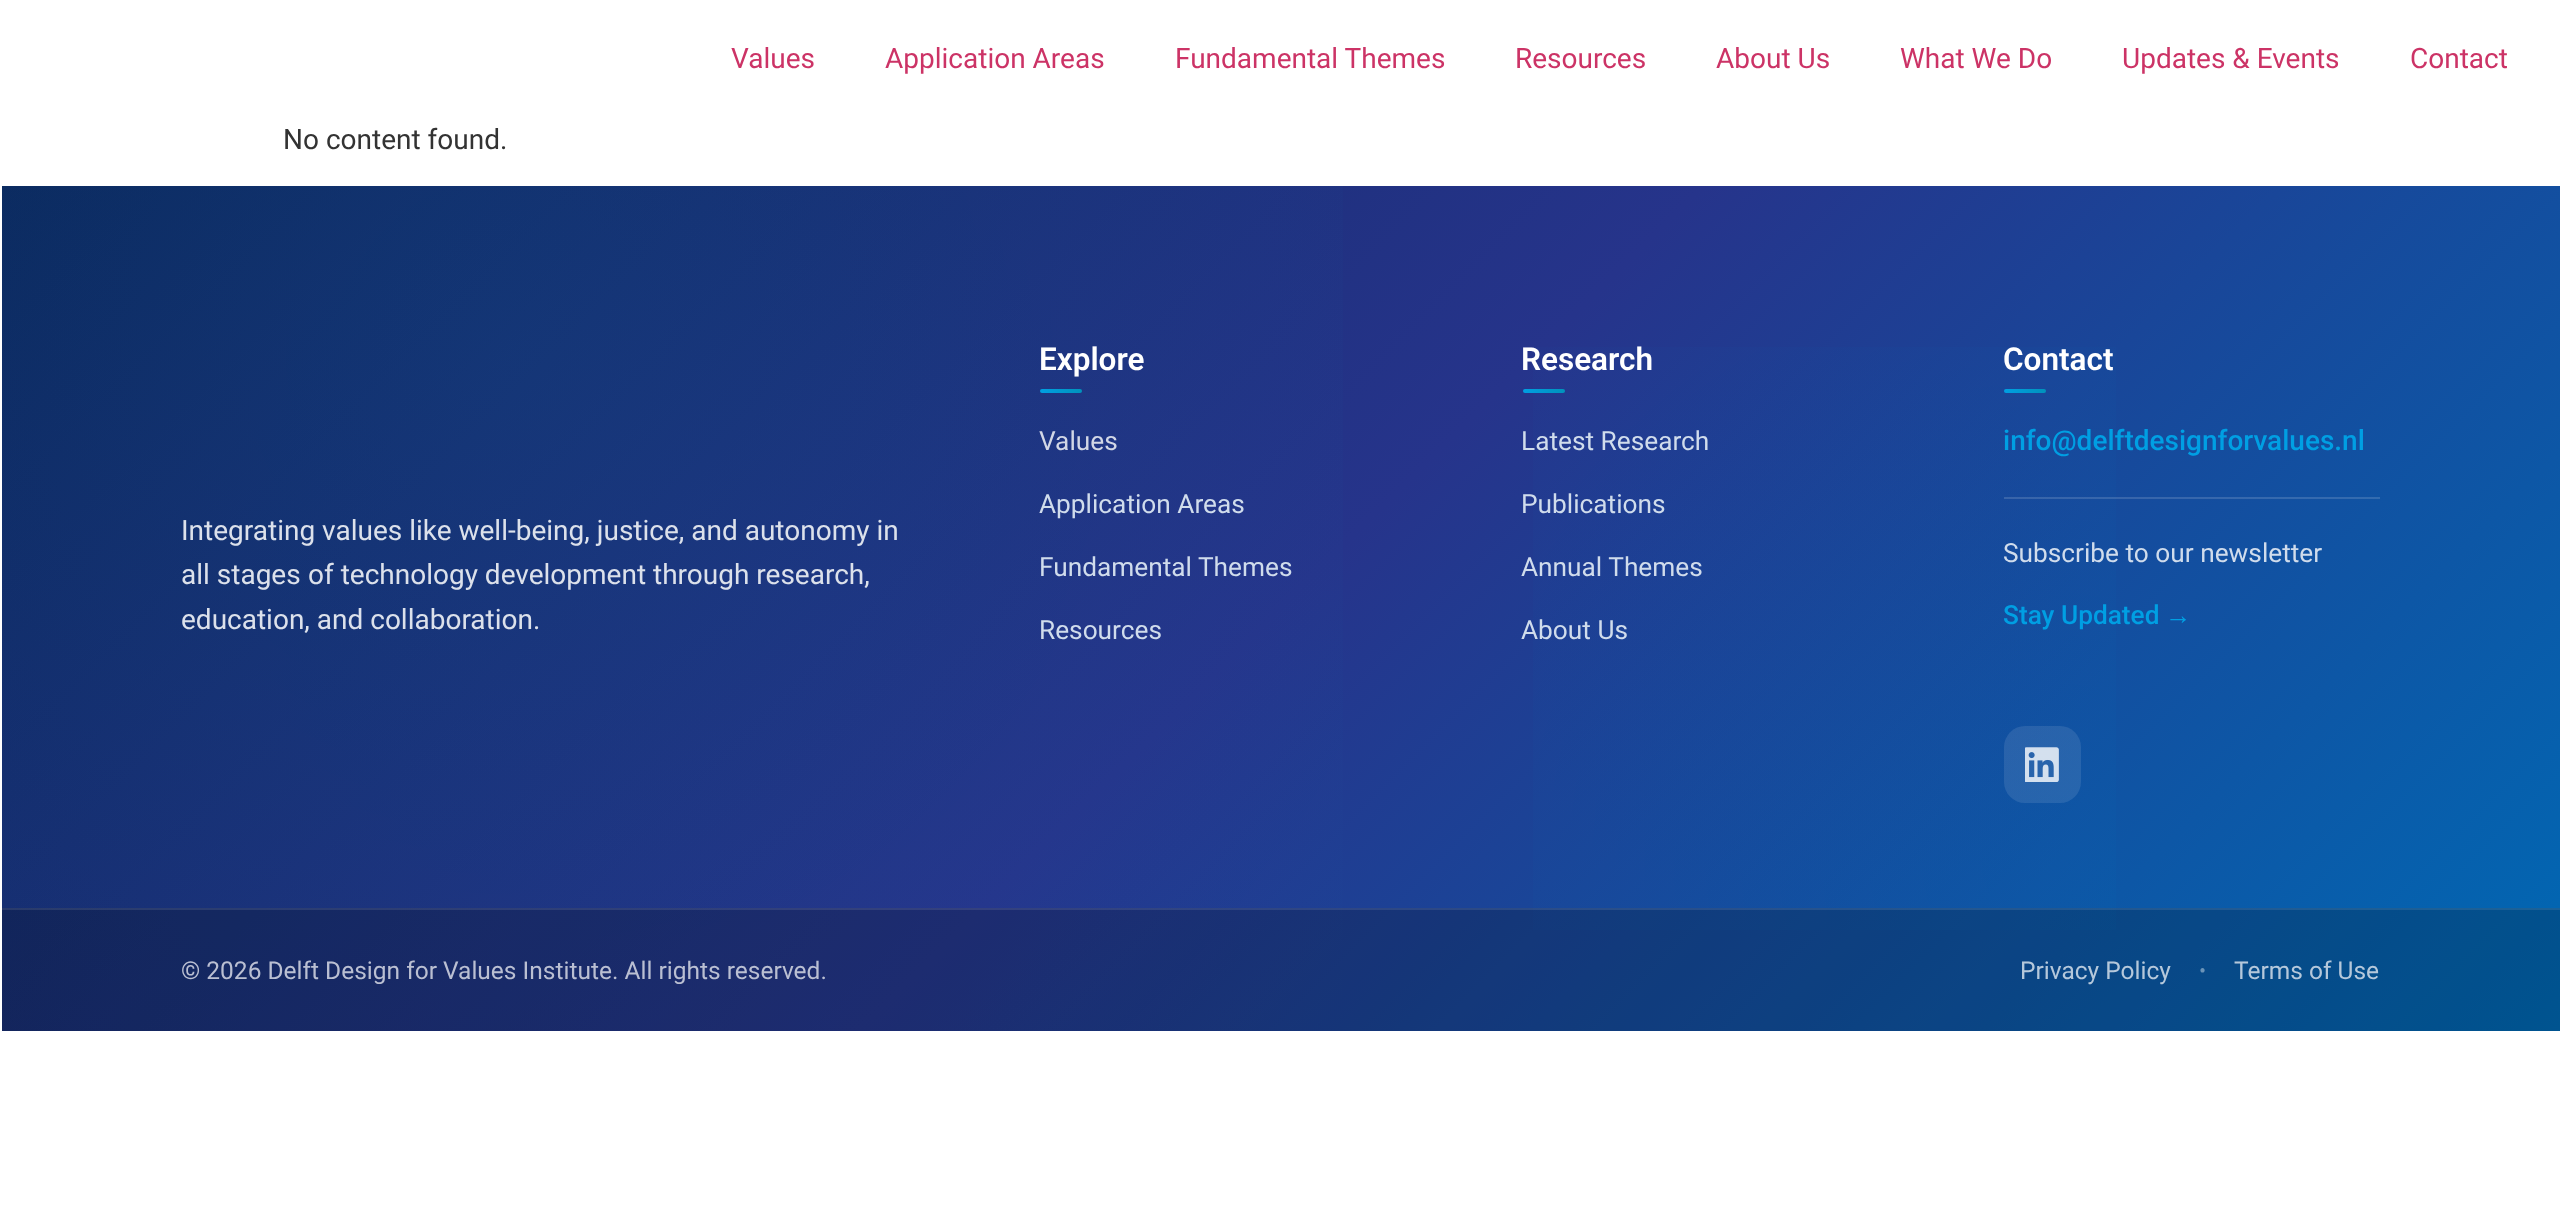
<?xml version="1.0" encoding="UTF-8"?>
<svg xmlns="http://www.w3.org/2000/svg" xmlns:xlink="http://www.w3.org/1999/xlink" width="2560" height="1231">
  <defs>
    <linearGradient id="g1" gradientUnits="userSpaceOnUse" x1="430" y1="-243" x2="2132" y2="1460"><stop offset="0" stop-color="#0c265c" /><stop offset="0.5" stop-color="#26348b" /><stop offset="1" stop-color="#0069b4" /></linearGradient>
    <radialGradient id="g2" gradientUnits="userSpaceOnUse" cx="2049" cy="862" r="2157"><stop offset="0" stop-color="#0069b4" stop-opacity="0.1" /><stop offset="0.5" stop-color="#0069b4" stop-opacity="0" /></radialGradient>
    <radialGradient id="g3" gradientUnits="userSpaceOnUse" cx="513" cy="355" r="2157"><stop offset="0" stop-color="#0093bd" stop-opacity="0.1" /><stop offset="0.5" stop-color="#0093bd" stop-opacity="0" /></radialGradient>
    <linearGradient id="g4" gradientUnits="userSpaceOnUse" x1="1039" y1="390" x2="1081" y2="390"><stop offset="0" stop-color="#009fe3" /><stop offset="1" stop-color="#0093bd" /></linearGradient>
    <linearGradient id="g5" gradientUnits="userSpaceOnUse" x1="1522" y1="390" x2="1564" y2="390"><stop offset="0" stop-color="#009fe3" /><stop offset="1" stop-color="#0093bd" /></linearGradient>
    <linearGradient id="g6" gradientUnits="userSpaceOnUse" x1="2003" y1="390" x2="2045" y2="390"><stop offset="0" stop-color="#009fe3" /><stop offset="1" stop-color="#0093bd" /></linearGradient>
  </defs>
  <rect width="100%" height="100%" fill="#ffffff" />
  <rect x="2" y="186" width="2558" height="845" fill="url(#g1)" />
  <rect x="1533" y="347" width="583" height="583" fill="url(#g2)" />
  <rect x="2" y="186" width="1341" height="845" fill="url(#g3)" />
  <rect x="1040" y="389" width="42" height="4" rx="2" fill="url(#g4)" />
  <rect x="1523" y="389" width="42" height="4" rx="2" fill="url(#g5)" />
  <rect x="2004" y="389" width="42" height="4" rx="2" fill="url(#g6)" />
  <rect x="2004" y="497" width="376" height="2" fill="#ffffff" fill-opacity="0.15" />
  <rect x="2004" y="726" width="77" height="77" rx="21" fill="#ffffff" fill-opacity="0.1" />
  <image x="2025" y="747" width="34" height="35" xlink:href="image1.png" />
  <rect x="2" y="908" width="2558" height="123" fill="#000000" fill-opacity="0.2" />
  <rect x="2" y="908" width="2558" height="2" fill="#ffffff" fill-opacity="0.1" />
  <text x="731" y="68" style="font-family: Roboto; font-size: 28px; fill: #cc3366">Values</text>
  <text x="885" y="68" style="font-family: Roboto; font-size: 28px; fill: #cc3366">Application Areas</text>
  <text x="1175" y="68" style="font-family: Roboto; font-size: 28px; fill: #cc3366">Fundamental Themes</text>
  <text x="1515" y="68" style="font-family: Roboto; font-size: 28px; fill: #cc3366">Resources</text>
  <text x="1716" y="68" style="font-family: Roboto; font-size: 28px; fill: #cc3366">About Us</text>
  <text x="1900" y="68" style="font-family: Roboto; font-size: 28px; fill: #cc3366">What We Do</text>
  <text x="2122" y="68" style="font-family: Roboto; font-size: 28px; fill: #cc3366">Updates &amp; Events</text>
  <text x="2410" y="68" style="font-family: Roboto; font-size: 28px; fill: #cc3366">Contact</text>
  <text x="283" y="149" style="font-family: Roboto; font-size: 28px; fill: #333333">No content found.</text>
  <text x="181" y="540" style="font-family: Roboto; font-size: 28px; fill: #dce1eb">Integrating values like well-being, justice, and autonomy in</text>
  <text x="181" y="584" style="font-family: Roboto; font-size: 28px; fill: #dce1eb">all stages</text>
  <text x="308" y="584" style="font-family: Roboto; font-size: 28px; fill: #dce1eb">of technology development through research,</text>
  <text x="181" y="629" style="font-family: Roboto; font-size: 28px; fill: #dce1eb">education, and collaboration.</text>
  <text x="1039" y="370" style="font-family: Roboto; font-size: 31.5px; font-weight: 600; fill: #ffffff">Explore</text>
  <text x="1039" y="450" style="font-family: Roboto; font-size: 26.25px; fill: #d2d7e6">Values</text>
  <text x="1039" y="513" style="font-family: Roboto; font-size: 26.25px; fill: #d0dcec">Application Areas</text>
  <text x="1039" y="576" style="font-family: Roboto; font-size: 26.25px; fill: #d0dcec">Fundamental Themes</text>
  <text x="1039" y="639" style="font-family: Roboto; font-size: 26.25px; fill: #d0dcec">Resources</text>
  <text x="1521" y="370" style="font-family: Roboto; font-size: 31.5px; font-weight: 600; fill: #ffffff">Research</text>
  <text x="1521" y="450" style="font-family: Roboto; font-size: 26.25px; fill: #d0dcec">Latest Research</text>
  <text x="1521" y="513" style="font-family: Roboto; font-size: 26.25px; fill: #d0dcec">Publications</text>
  <text x="1521" y="576" style="font-family: Roboto; font-size: 26.25px; fill: #d0dcec">Annual Themes</text>
  <text x="1521" y="639" style="font-family: Roboto; font-size: 26.25px; fill: #d0dcec">About Us</text>
  <text x="2003" y="370" style="font-family: Roboto; font-size: 31.5px; font-weight: 600; fill: #ffffff">Contact</text>
  <text x="2003" y="450" style="font-family: Roboto; font-size: 28px; font-weight: 500; fill: #009fe3">info@delftdesignforvalues.nl</text>
  <text x="2003" y="562" style="font-family: Roboto; font-size: 26.25px; fill: #d0dcec">Subscribe to our newsletter</text>
  <text x="2003" y="624" style="font-family: Roboto; font-size: 26.25px; font-weight: 500; fill: #009fe3">Stay Updated</text>
  <text x="2165" y="624" style="font-family: Liberation Sans; font-size: 26.25px; fill: #009fe3">→</text>
  <text x="181" y="979" style="font-family: Roboto; font-size: 24.5px; fill: #babfd2">© 2026 Delft Design for Values Institute. All rights reserved.</text>
  <text x="2020" y="979" style="font-family: Roboto; font-size: 24.5px; fill: #b5c8db">Privacy Policy</text>
  <text x="2199" y="978" style="font-family: Roboto; font-size: 21px; fill: #6a93b8">•</text>
  <text x="2234" y="979" style="font-family: Roboto; font-size: 24.5px; fill: #b5c8db">Terms of Use</text>
</svg>
